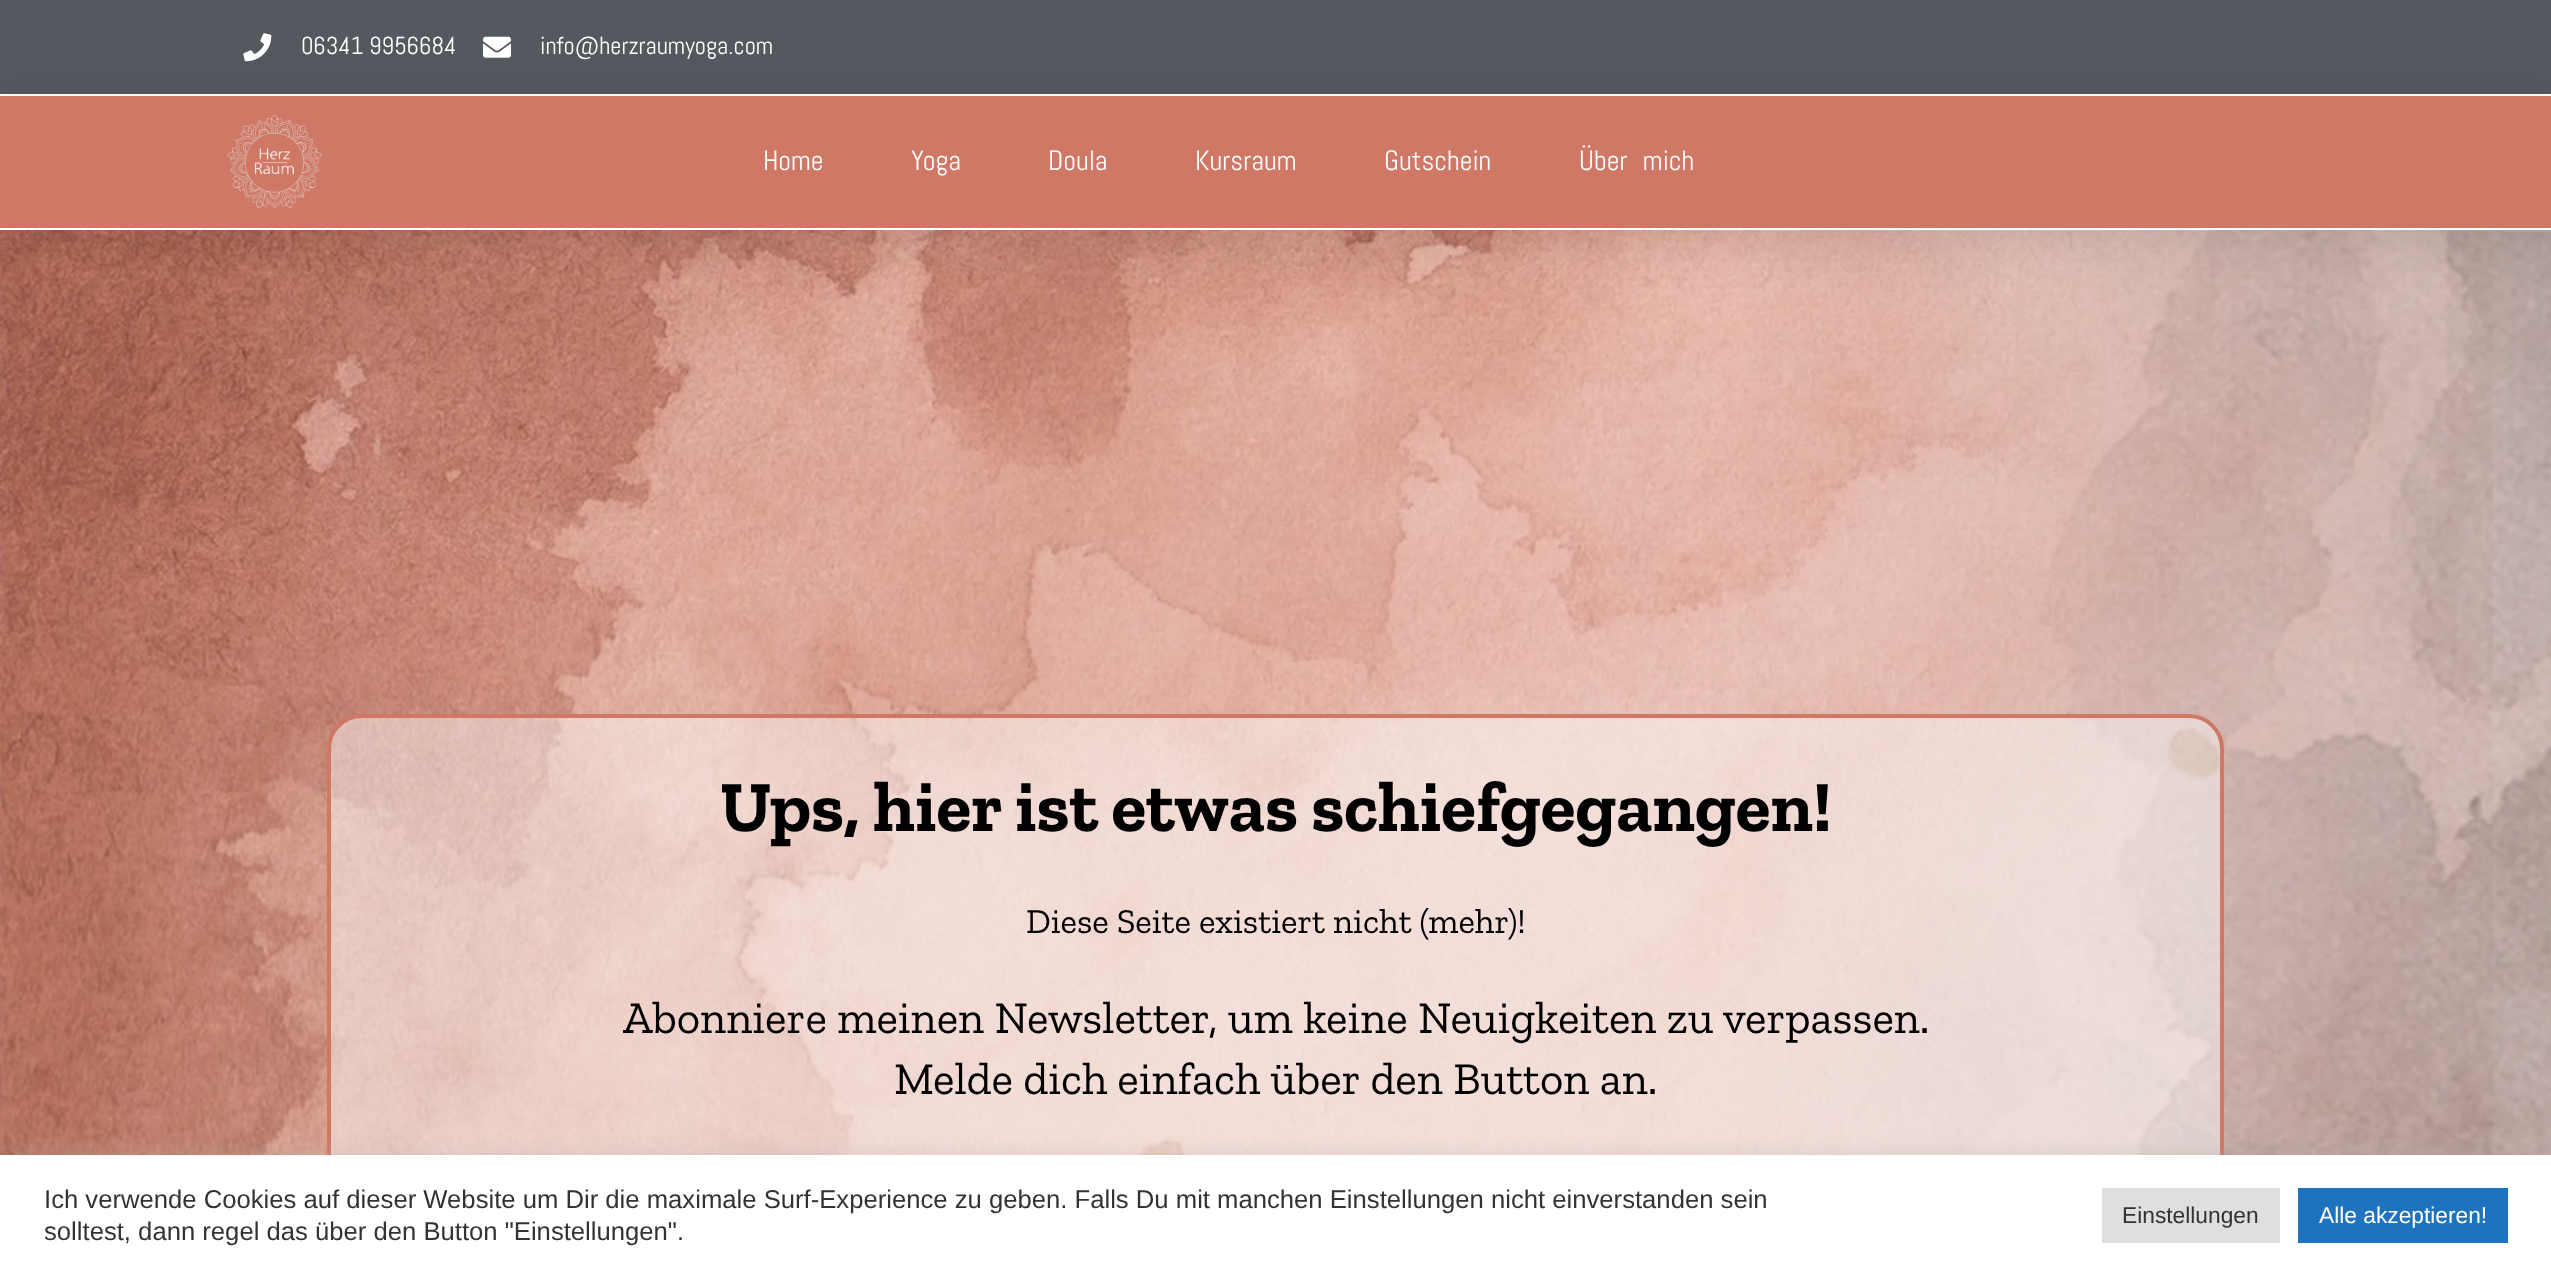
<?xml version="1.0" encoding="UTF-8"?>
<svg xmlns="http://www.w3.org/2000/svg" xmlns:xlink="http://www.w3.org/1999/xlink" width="2551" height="1275">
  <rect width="100%" height="100%" fill="#ffffff" />
  <rect width="2551" height="94" fill="#54595f" />
  <image x="243" y="33" width="29" height="29" xlink:href="image1.png" />
  <image x="483" y="36" width="28" height="22" xlink:href="image2.png" />
  <image x="0" y="230" width="2551" height="925" xlink:href="image4.png" />
  <rect y="105" width="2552" height="133" fill="#000000" fill-opacity="0.1" filter="blur(26px)" />
  <rect y="96" width="2551" height="132" fill="#cf7865" />
  <rect y="228" width="2551" height="2" fill="#ffffff" />
  <image x="227" y="114" width="95" height="95" xlink:href="image3.png" />
  <rect x="329" y="716" width="1893" height="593" rx="33" fill="#ffffff" fill-opacity="0.46" stroke="#cf7865" stroke-width="4" />
  <rect y="1153" width="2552" height="121" fill="#acabab" fill-opacity="0.3" filter="blur(9px)" />
  <rect y="1155" width="2551" height="120" fill="#ffffff" />
  <rect x="2102" y="1188" width="178" height="55" fill="#dedfe0" />
  <rect x="2298" y="1188" width="210" height="55" fill="#1e73be" />
  <text x="301" y="54" style="font-family: Abel; font-size: 24.5px; fill: #ffffff">06341 9956684</text>
  <text x="540" y="54" style="font-family: Abel; font-size: 24.5px; fill: #ffffff">info@herzraumyoga.com</text>
  <text x="763" y="170" style="font-family: Abel; font-size: 28px; fill: #ffffff">Home</text>
  <text x="911" y="170" style="font-family: Abel; font-size: 28px; fill: #ffffff">Yoga</text>
  <text x="1048" y="170" style="font-family: Abel; font-size: 28px; fill: #ffffff">Doula</text>
  <text x="1195" y="170" style="font-family: Abel; font-size: 28px; fill: #ffffff">Kursraum</text>
  <text x="1384" y="170" style="font-family: Abel; font-size: 28px; fill: #ffffff">Gutschein</text>
  <text x="1579" y="170" word-spacing="9" style="font-family: Abel; font-size: 28px; fill: #ffffff">Über mich</text>
  <text x="720" y="831" style="font-family: Zilla Slab; font-size: 71.75px; font-weight: bold; fill: #000000">Ups, hier ist etwas schiefgegangen!</text>
  <text x="1026" y="933" style="font-family: Zilla Slab; font-size: 35px; fill: #000000">Diese Seite existiert nicht (mehr)!</text>
  <text x="623" y="1033" style="font-family: Zilla Slab; font-size: 45.5px; fill: #000000">Abonniere meinen Newsletter, um keine Neuigkeiten zu verpassen.</text>
  <text x="894" y="1094" style="font-family: Zilla Slab; font-size: 45.5px; fill: #000000">Melde dich einfach über den Button an.</text>
  <text x="44" y="1208" style="font-family: Liberation Sans; font-size: 25.67px; fill: #333333">Ich verwende Cookies auf dieser Website um Dir die maximale Surf-Experience zu geben. Falls Du mit manchen Einstellungen nicht einverstanden sein</text>
  <text x="44" y="1240" style="font-family: Liberation Sans; font-size: 25.67px; fill: #333333">solltest, dann regel das über den Button "Einstellungen".</text>
  <text x="2122" y="1223" style="font-family: Liberation Sans; font-size: 22.75px; fill: #333333">Einstellungen</text>
  <text x="2319" y="1223" style="font-family: Liberation Sans; font-size: 22.75px; fill: #ffffff">Alle akzeptieren!</text>
</svg>
